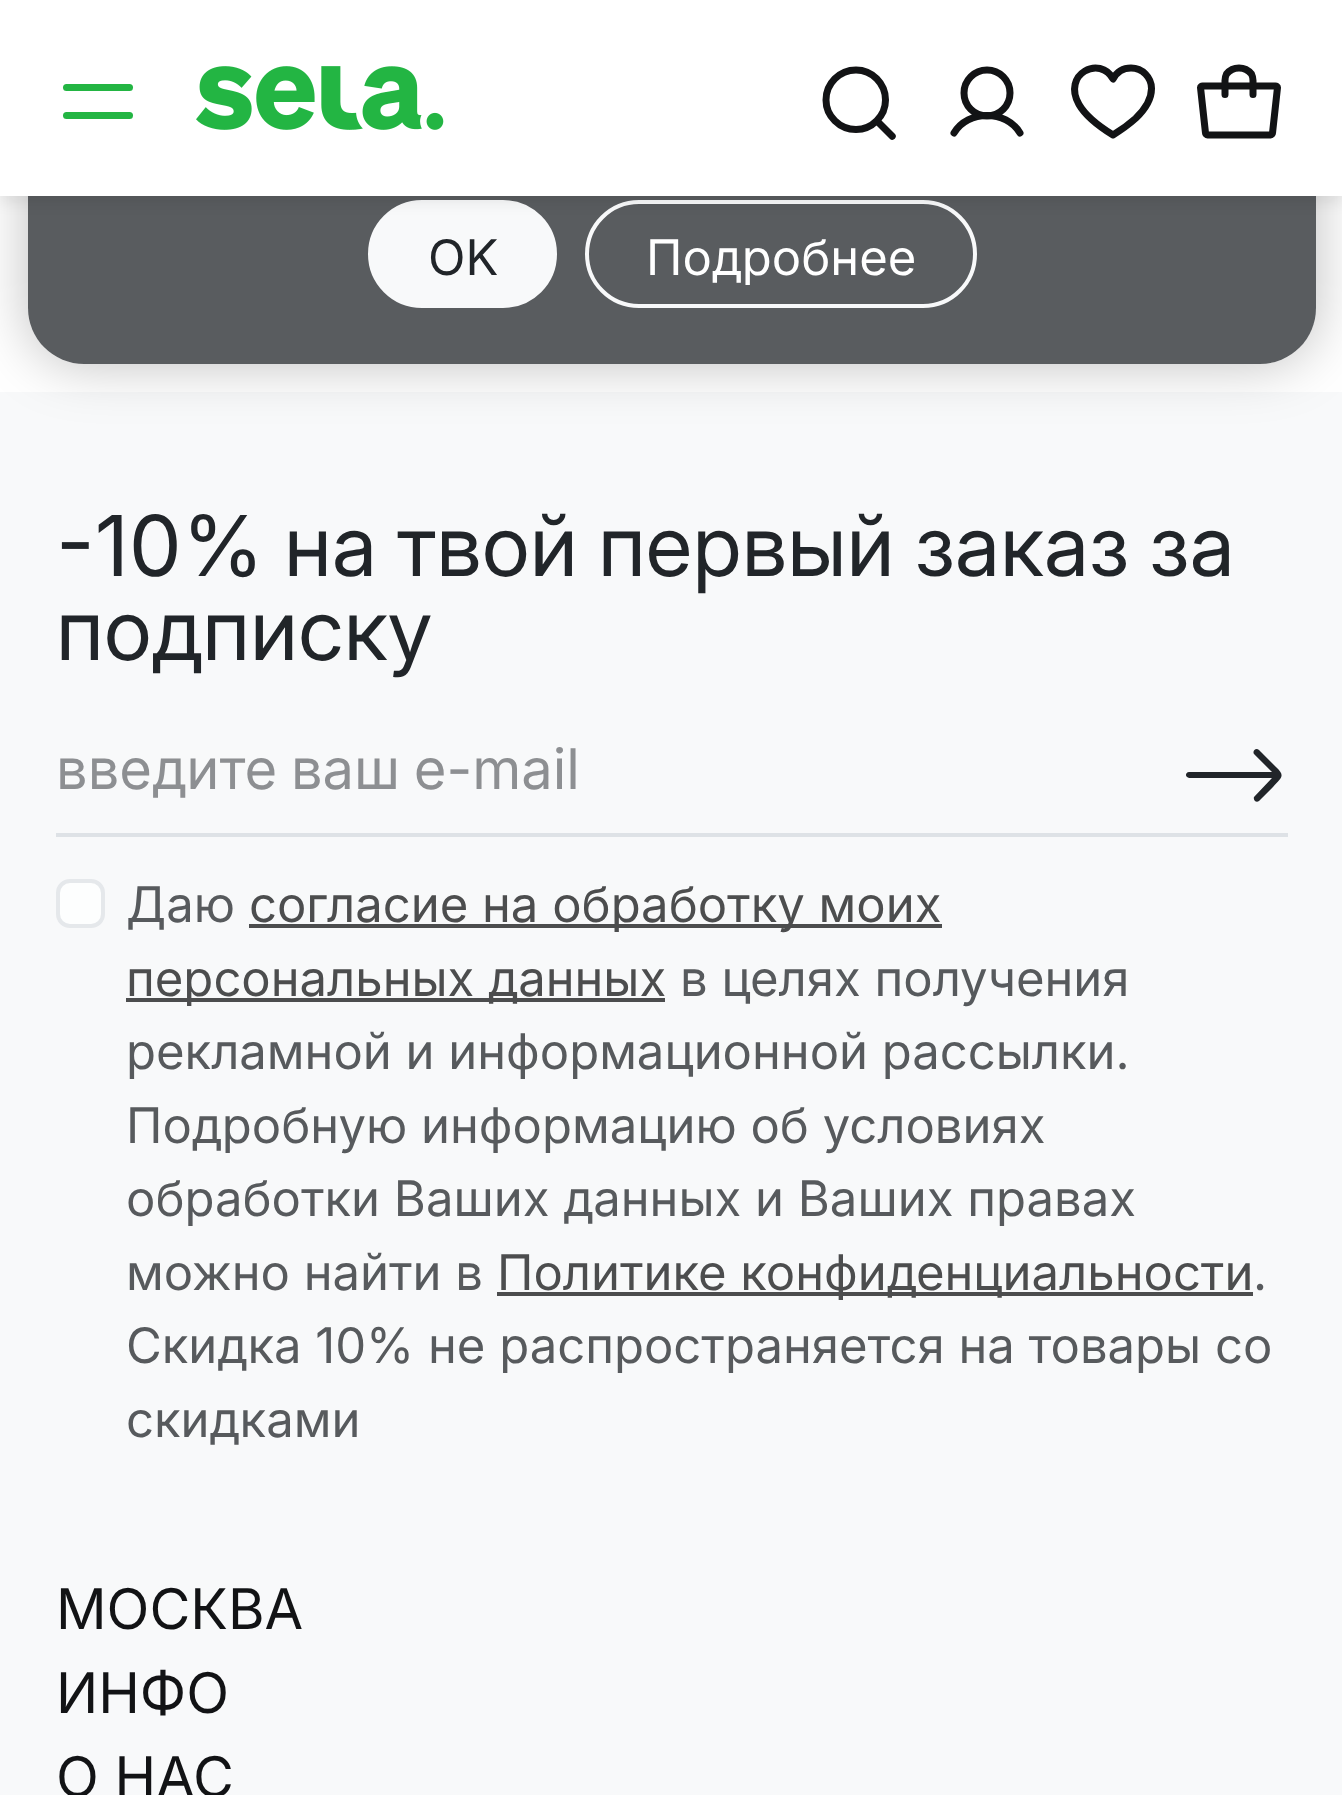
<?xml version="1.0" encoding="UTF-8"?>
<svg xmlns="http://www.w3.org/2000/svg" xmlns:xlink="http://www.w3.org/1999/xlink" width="1342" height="1795">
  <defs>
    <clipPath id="clip1"><path d="M 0 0 h 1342 v 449 h -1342 z m 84 -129 h 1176 c 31 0 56 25 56 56 v 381 c 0 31 -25 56 -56 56 h -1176 c -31 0 -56 -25 -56 -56 v -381 c 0 -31 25 -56 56 -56 z" clip-rule="evenodd" /></clipPath>
  </defs>
  <rect width="100%" height="100%" fill="#ffffff" />
  <rect y="392" width="1342" height="1403" fill="#f8f9fa" />
  <g clip-path="url(#clip1)">
    <rect x="28" y="-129" width="1288" height="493" rx="56" fill="#000000" fill-opacity="0.25" filter="blur(28px)" />
  </g>
  <rect x="28" y="-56" width="1288" height="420" rx="56" fill="#212529" fill-opacity="0.75" />
  <rect x="370" y="202" width="185" height="104" rx="52" fill="#f8f9fa" stroke="#f8f9fa" stroke-width="4" />
  <rect x="587" y="202" width="388" height="104" rx="52" fill="none" stroke="#f8f9fa" stroke-width="4" />
  <rect y="7" width="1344" height="196" fill="#000000" fill-opacity="0.07" filter="blur(7px)" />
  <rect width="1342" height="196" fill="#ffffff" />
  <rect x="63" y="84" width="70" height="7" rx="3.5" fill="#23b543" />
  <rect x="63" y="112" width="70" height="7" rx="3.5" fill="#23b543" />
  <image x="196" y="66" width="248" height="64" xlink:href="image1.png" />
  <path d="M 890 139 c 3 3 8 -2 5 -5 z m -17.5 -17.5 l 17.5 17.5 l 5 -5 l -17.5 -17.5 z" fill="#121315" />
  <path d="M 856 129.5 c 16 0 29.5 -13.5 29.5 -29.5 c 0 -16.5 -13.5 -30 -29.5 -30 c -16.5 0 -30 13.5 -30 30 c 0 16 13.5 29.5 30 29.5 z" fill="none" stroke="#121315" stroke-width="7" />
  <circle cx="987" cy="93" r="23" fill="none" stroke="#121315" stroke-width="7" />
  <path d="M 954 133 c 13.5 -23.5 52.5 -23.5 66 0" fill="none" stroke="#121315" stroke-width="7" stroke-linecap="round" />
  <path d="M 1131 68 c -8 0 -14.5 4.5 -18 11 c -12.5 -24 -51.5 -5.5 -34 25.5 c 7.5 13 21 22.5 34 30.5 c 0 0 13 -8 22.5 -16.5 c 10 -9.5 16 -19 16 -30 c 0 -11 -9 -20.5 -20.5 -20.5 z" fill="none" stroke="#121315" stroke-width="7" stroke-linecap="round" stroke-linejoin="round" />
  <path d="M 1200.5 87.5 l 5 45.5 c 0 1 1 2 2 2 h 63 c 1 0 2 -1 2 -2 l 5 -45.5 c 0 -1 -1 -1.5 -2 -1.5 h -73 c -1 0 -2 0.5 -2 1.5 z" fill="none" stroke="#121315" stroke-width="7" />
  <path d="M 1225 94.5 v -14 c 0 -2.5 0.5 -4.5 1.5 -6.5 c 2 -2.5 6 -6 12.5 -6 c 6.5 0 10.5 3.5 12.5 6 c 1 2 1.5 4 1.5 6.5 v 14" fill="none" stroke="#121315" stroke-width="7" stroke-linecap="round" />
  <rect x="56" y="833" width="1232" height="4" fill="#dee2e6" />
  <path d="M 1259 750 c -3 -3 -7 1 -5 4 l 18 18 h -83 c -3 0 -4 4 -2 5 l 2 1 h 83 l -18 19 c -1 3 2 6 5 4 l 14 -14 c 8 -9 13 -11 3 -20 z" fill="#212529" />
  <rect x="58" y="881" width="45" height="45" rx="12" fill="#fdfefe" stroke="#e5e8eb" stroke-width="4" />
  <rect x="249" y="924" width="693" height="4" fill="#4c4d4e" />
  <rect x="126" y="998" width="539" height="4" fill="#4c4d4e" />
  <rect x="497" y="1292" width="756" height="4" fill="#4c4d4e" />
  <text x="428" y="275" style="font-family: Inter; font-size: 49px; fill: #212529">OK</text>
  <text x="646" y="275" style="font-family: Inter; font-size: 49px; fill: #ffffff">Подробнее</text>
  <text x="56" y="576" style="font-family: Inter; font-size: 84px; fill: #212529">-10%</text>
  <text x="284" y="576" word-spacing="-2" style="font-family: 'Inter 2'; font-size: 84px; fill: #212529">на твой первый заказ за</text>
  <text x="56" y="660" style="font-family: 'Inter 2'; font-size: 84px; fill: #212529">подписку</text>
  <text x="56" y="789" word-spacing="-2" style="font-family: Inter; font-size: 56px; fill: #8d8f92">введите ваш e-mail</text>
  <text x="126" y="922" style="font-family: Inter; font-size: 49px; fill: #575a5d">Даю</text>
  <text x="249" y="922" style="font-family: Inter; font-size: 49px; fill: #4c4d4e">согласие на обработку моих</text>
  <text x="126" y="996" style="font-family: Inter; font-size: 49px; fill: #4c4d4e">персональных данных</text>
  <text x="680" y="996" style="font-family: Inter; font-size: 49px; fill: #575a5d">в целях получения</text>
  <text x="126" y="1069" style="font-family: Inter; font-size: 49px; fill: #575a5d">рекламной и информационной рассылки.</text>
  <text x="126" y="1143" style="font-family: Inter; font-size: 49px; fill: #575a5d">Подробную информацию об условиях</text>
  <text x="126" y="1216" style="font-family: Inter; font-size: 49px; fill: #575a5d">обработки Ваших данных и Ваших правах</text>
  <text x="126" y="1290" style="font-family: Inter; font-size: 49px; fill: #575a5d">можно найти в</text>
  <text x="497" y="1290" style="font-family: Inter; font-size: 49px; fill: #4c4d4e">Политике конфиденциальности</text>
  <text x="1253" y="1290" style="font-family: Inter; font-size: 49px; fill: #575a5d">.</text>
  <text x="126" y="1363" style="font-family: Inter; font-size: 49px; fill: #575a5d">Скидка 10% не распространяется на товары со</text>
  <text x="126" y="1437" style="font-family: Inter; font-size: 49px; fill: #575a5d">скидками</text>
  <text x="56" y="1629" style="font-family: Inter; font-size: 56px; fill: #121315">МОСКВА</text>
  <text x="56" y="1713" style="font-family: Inter; font-size: 56px; fill: #121315">ИНФО</text>
  <text x="56" y="1797" style="font-family: Inter; font-size: 56px; fill: #121315">О НАС</text>
</svg>
